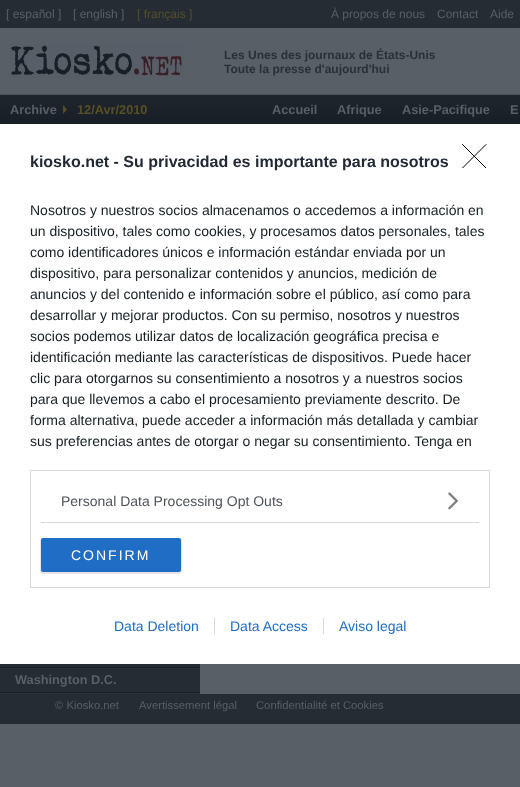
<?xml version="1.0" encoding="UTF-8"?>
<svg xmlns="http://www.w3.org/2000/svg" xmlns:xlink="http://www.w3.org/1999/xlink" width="520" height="787">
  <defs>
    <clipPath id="clip1"><rect x="462" y="144" width="25" height="24" /></clipPath>
  </defs>
  <rect width="100%" height="100%" fill="#595f67" />
  <rect width="520" height="28" fill="#262c34" />
  <image x="9" y="44" width="175" height="34" xlink:href="image1.png" />
  <rect y="118" width="520" height="6" fill="#191f27" />
  <image x="0" y="95" width="520" height="23" xlink:href="image2.png" />
  <rect y="94" width="520" height="1" fill="#4c525a" />
  <image x="63" y="105" width="4" height="9" xlink:href="image3.png" />
  <rect y="124" width="520" height="540" fill="#ffffff" />
  <g clip-path="url(#clip1)">
    <path d="M 462.5 144.5 l 23.5 23.5 m 0 -23.5 l -23.5 23.5" fill="none" stroke="#000000" stroke-linecap="round" stroke-linejoin="round" />
  </g>
  <rect x="30.5" y="470.5" width="459" height="117" fill="none" stroke="#d8d8d8" />
  <rect x="41" y="522" width="438" height="1" fill="#d8d8d8" />
  <image x="448" y="492" width="10" height="18" xlink:href="image4.png" />
  <rect x="40" y="538" width="142" height="36" rx="3" fill="#000000" fill-opacity="0.1" filter="blur(0.5px)" />
  <rect x="41" y="538" width="140" height="34" rx="2" fill="#206dc5" />
  <rect x="214" y="618" width="1" height="16" fill="#d8d8d8" />
  <rect x="323" y="618" width="1" height="16" fill="#d8d8d8" />
  <rect y="664" width="200" height="28" fill="#262c34" />
  <image x="0" y="667" width="200" height="2" xlink:href="image5.png" />
  <image x="0" y="692" width="200" height="2" xlink:href="image5.png" />
  <rect y="694" width="520" height="30" fill="#262c34" />
  <text x="6" y="18" style="font-family: Liberation Sans; font-size: 12px; fill: #595f67">[ español ]</text>
  <text x="73" y="18" style="font-family: Liberation Sans; font-size: 12px; fill: #595f67">[ english ]</text>
  <text x="137" y="18" style="font-family: Liberation Sans; font-size: 12px; fill: #584f27">[ français ]</text>
  <text x="331" y="18" style="font-family: Liberation Sans; font-size: 12px; fill: #595f67">À propos de nous</text>
  <text x="437" y="18" style="font-family: Liberation Sans; font-size: 12px; fill: #595f67">Contact</text>
  <text x="490" y="18" style="font-family: Liberation Sans; font-size: 12px; fill: #595f67">Aide</text>
  <text x="224" y="59" style="font-family: Liberation Sans; font-size: 12px; font-weight: bold; fill: #2a3038">Les Unes des journaux de États-Unis</text>
  <text x="224" y="73" style="font-family: Liberation Sans; font-size: 12px; font-weight: bold; fill: #2a3038">Toute la presse d'aujourd'hui</text>
  <text x="10" y="114" style="font-family: Liberation Sans; font-size: 12.75px; font-weight: bold; fill: #595f67">Archive</text>
  <text x="77" y="114" style="font-family: Liberation Sans; font-size: 12.75px; font-weight: bold; fill: #584f27">12/Avr/2010</text>
  <text x="272" y="114" style="font-family: Liberation Sans; font-size: 12.75px; font-weight: bold; fill: #595f67">Accueil</text>
  <text x="337" y="114" style="font-family: Liberation Sans; font-size: 12.75px; font-weight: bold; fill: #595f67">Afrique</text>
  <text x="402" y="114" style="font-family: Liberation Sans; font-size: 12.75px; font-weight: bold; fill: #595f67">Asie-Pacifique</text>
  <text x="510" y="114" style="font-family: Liberation Sans; font-size: 12.75px; font-weight: bold; fill: #595f67">E</text>
  <text x="30" y="167" style="font-family: Liberation Sans; font-size: 16px; font-weight: bold; fill: #212934">kiosko.net - Su privacidad es importante para nosotros</text>
  <text x="30" y="215" style="font-family: Liberation Sans; font-size: 14px; fill: #141e23">Nosotros y nuestros socios almacenamos o accedemos a información en</text>
  <text x="30" y="236" style="font-family: Liberation Sans; font-size: 14px; fill: #141e23">un dispositivo, tales como cookies, y procesamos datos personales, tales</text>
  <text x="30" y="257" style="font-family: Liberation Sans; font-size: 14px; fill: #141e23">como identificadores únicos e información estándar enviada por un</text>
  <text x="30" y="278" style="font-family: Liberation Sans; font-size: 14px; fill: #141e23">dispositivo, para personalizar contenidos y anuncios, medición de</text>
  <text x="30" y="299" style="font-family: Liberation Sans; font-size: 14px; fill: #141e23">anuncios y del contenido e información sobre el público, así como para</text>
  <text x="30" y="320" style="font-family: Liberation Sans; font-size: 14px; fill: #141e23">desarrollar y mejorar productos. Con su permiso, nosotros y nuestros</text>
  <text x="30" y="341" style="font-family: Liberation Sans; font-size: 14px; fill: #141e23">socios podemos utilizar datos de localización geográfica precisa e</text>
  <text x="30" y="362" style="font-family: Liberation Sans; font-size: 14px; fill: #141e23">identificación mediante las características de dispositivos. Puede hacer</text>
  <text x="30" y="383" style="font-family: Liberation Sans; font-size: 14px; fill: #141e23">clic para otorgarnos su consentimiento a nosotros y a nuestros socios</text>
  <text x="30" y="404" style="font-family: Liberation Sans; font-size: 14px; fill: #141e23">para que llevemos a cabo el procesamiento previamente descrito. De</text>
  <text x="30" y="425" style="font-family: Liberation Sans; font-size: 14px; fill: #141e23">forma alternativa, puede acceder a información más detallada y cambiar</text>
  <text x="30" y="446" style="font-family: Liberation Sans; font-size: 14px; fill: #141e23">sus preferencias antes de otorgar o negar su consentimiento. Tenga en</text>
  <text x="61" y="506" style="font-family: Liberation Sans; font-size: 14px; fill: #4d545d">Personal Data Processing Opt Outs</text>
  <text x="71" y="560" style="font-family: Liberation Sans; font-size: 14px; letter-spacing: 2px; fill: #ffffff">CONFIRM</text>
  <text x="114" y="631" style="font-family: Liberation Sans; font-size: 14px; fill: #206dc5">Data Deletion</text>
  <text x="230" y="631" style="font-family: Liberation Sans; font-size: 14px; fill: #206dc5">Data Access</text>
  <text x="339" y="631" style="font-family: Liberation Sans; font-size: 14px; fill: #206dc5">Aviso legal</text>
  <text x="15" y="684" style="font-family: Liberation Sans; font-size: 12.75px; font-weight: bold; fill: #595f67">Washington D.C.</text>
  <text x="55" y="709" style="font-family: Liberation Sans; font-size: 11.25px; fill: #595f67">© Kiosko.net</text>
  <text x="139" y="709" style="font-family: Liberation Sans; font-size: 11.25px; fill: #595f67">Avertissement légal</text>
  <text x="256" y="709" style="font-family: Liberation Sans; font-size: 11.25px; fill: #595f67">Confidentialité et Cookies</text>
</svg>
